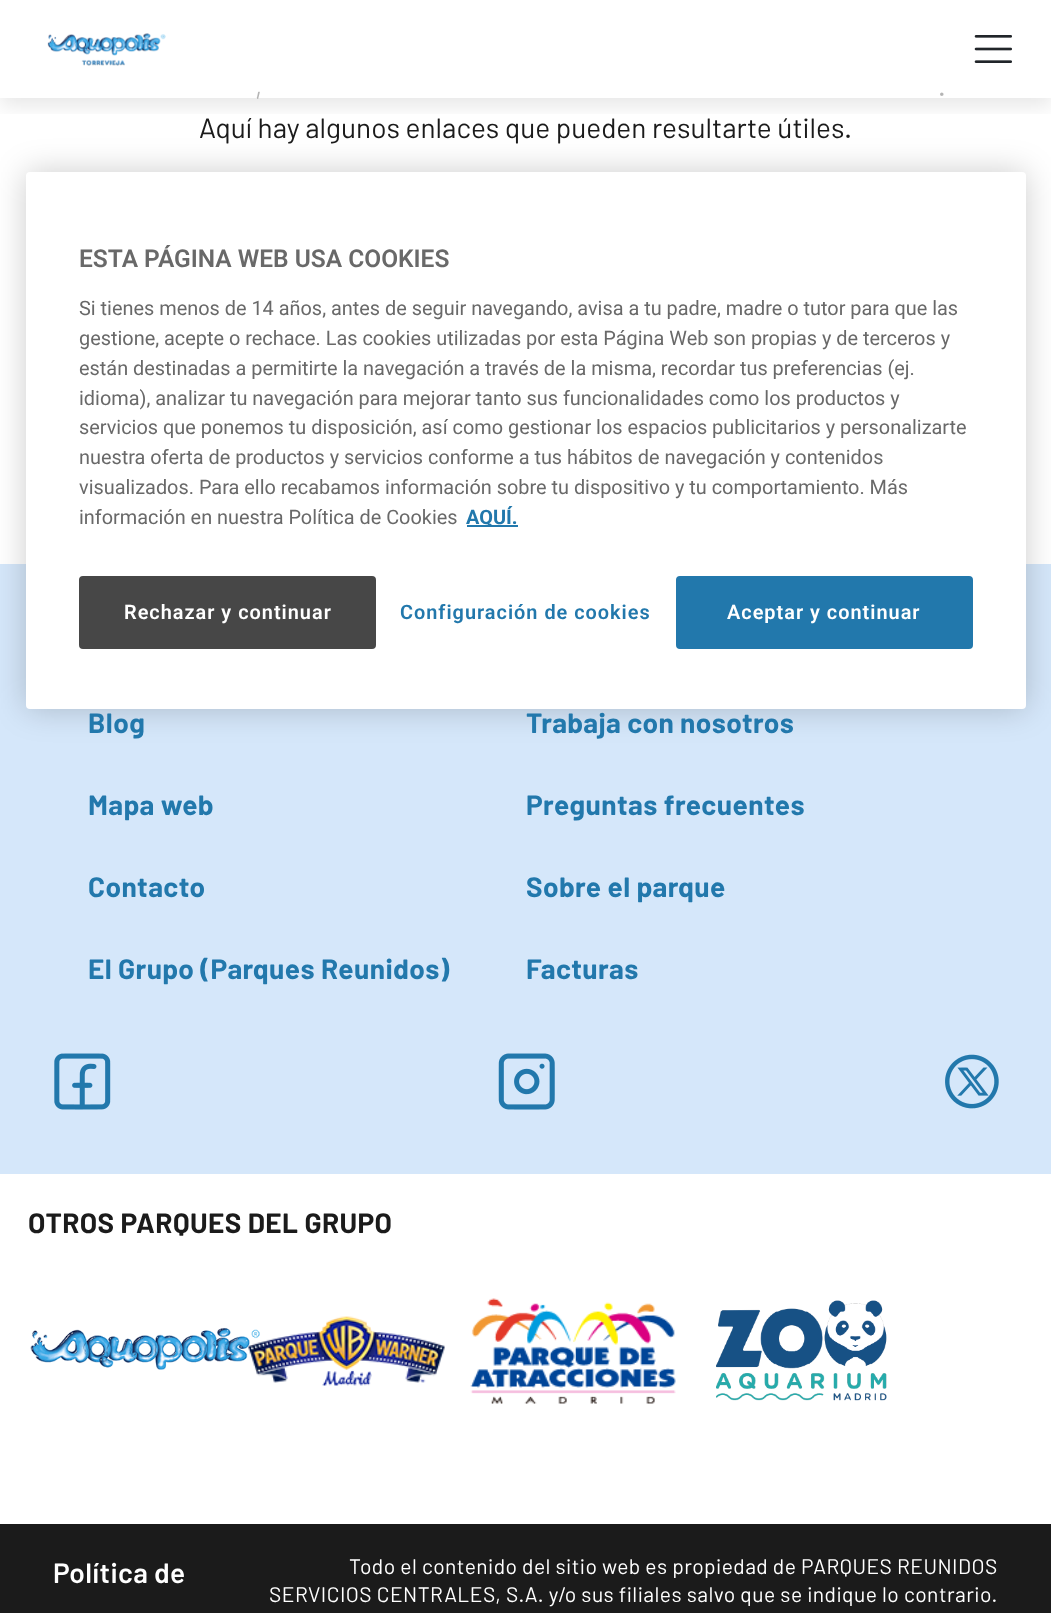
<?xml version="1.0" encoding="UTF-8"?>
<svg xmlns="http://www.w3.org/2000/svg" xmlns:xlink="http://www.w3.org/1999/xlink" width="1051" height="1613">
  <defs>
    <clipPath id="clip1"><rect x="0" y="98" width="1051" height="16" /></clipPath>
    <linearGradient id="g1" gradientUnits="userSpaceOnUse" x1="526" y1="0" x2="526" y2="98"><stop offset="0" stop-color="#ffffff" /><stop offset="1" stop-color="#ffffff" stop-opacity="0.66" /></linearGradient>
  </defs>
  <rect width="100%" height="100%" fill="#ffffff" />
  <g clip-path="url(#clip1)">
    <rect y="7" width="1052" height="98" fill="#000000" fill-opacity="0.1" filter="blur(10.5px)" />
  </g>
  <image x="47" y="33" width="119" height="33" xlink:href="image1.png" />
  <image x="974" y="35" width="38" height="28" xlink:href="image2.png" />
  <rect y="564" width="1051" height="610" fill="#d5e7fa" />
  <rect x="26" y="172" width="1000" height="537" rx="4" fill="#000000" fill-opacity="0.2" filter="blur(16px)" />
  <rect x="26" y="172" width="1000" height="537" rx="4" fill="#ffffff" />
  <rect x="467" y="525" width="51" height="2" fill="#2278ac" />
  <rect x="80" y="577" width="295" height="71" rx="3" fill="#474747" stroke="#474747" stroke-width="2" />
  <rect x="677" y="577" width="295" height="71" rx="3" fill="#2278ac" stroke="#2278ac" stroke-width="2" />
  <image x="54" y="1053" width="57" height="57" xlink:href="image3.png" />
  <image x="498" y="1053" width="57" height="57" xlink:href="image4.png" />
  <image x="945" y="1054" width="54" height="55" xlink:href="image5.png" />
  <image x="30" y="1327" width="230" height="43" xlink:href="image6.png" />
  <image x="248" y="1316" width="197" height="70" xlink:href="image7.png" />
  <image x="470" y="1298" width="206" height="106" xlink:href="image8.png" />
  <image x="716" y="1300" width="171" height="101" xlink:href="image9.png" />
  <rect y="1524" width="1051" height="89" fill="#1b1b1b" />
  <text x="255" y="96" style="font-family: Barlow; font-size: 28px; fill: #1b1b1b">,</text>
  <text x="938" y="96" style="font-family: Barlow; font-size: 28px; fill: #1b1b1b">.</text>
  <rect x="257" y="91" width="687" height="7" fill="url(#g1)" />
  <text x="199" y="138" style="font-family: Barlow; font-size: 28px; fill: #1b1b1b">Aquí hay algunos enlaces que pueden resultarte útiles.</text>
  <text x="79" y="267" style="font-family: Roboto; font-size: 24.5px; font-weight: 600; fill: #696969">ESTA PÁGINA WEB USA COOKIES</text>
  <text x="79" y="315" style="font-family: Roboto; font-size: 19.9px; fill: #696969">Si tienes menos de 14 años, antes de seguir navegando, avisa a tu padre, madre o tutor para que las</text>
  <text x="79" y="345" style="font-family: Roboto; font-size: 19.9px; fill: #696969">gestione, acepte o rechace. Las cookies utilizadas por esta Página Web son propias y de terceros y</text>
  <text x="79" y="375" style="font-family: Roboto; font-size: 19.9px; fill: #696969">están destinadas a permitirte la navegación a través de la misma, recordar tus preferencias (ej.</text>
  <text x="79" y="405" style="font-family: Roboto; font-size: 19.9px; fill: #696969">idioma), analizar tu navegación para mejorar tanto sus funcionalidades como los productos y</text>
  <text x="79" y="434" style="font-family: Roboto; font-size: 19.9px; fill: #696969">servicios que ponemos tu disposición, así como gestionar los espacios publicitarios y personalizarte</text>
  <text x="79" y="464" style="font-family: Roboto; font-size: 19.9px; fill: #696969">nuestra oferta de productos y servicios conforme a tus hábitos de navegación y contenidos</text>
  <text x="79" y="494" style="font-family: Roboto; font-size: 19.9px; fill: #696969">visualizados. Para ello recabamos información sobre tu dispositivo y tu comportamiento. Más</text>
  <text x="79" y="524" style="font-family: Roboto; font-size: 19.9px; fill: #696969">información en nuestra Política de Cookies</text>
  <text x="466" y="524" style="font-family: Roboto; font-size: 19.9px; font-weight: bold; fill: #2278ac">AQUÍ.</text>
  <text x="400" y="619" style="font-family: Roboto; font-size: 19.9px; font-weight: 600; letter-spacing: 1px; fill: #2278ac">Configuración de cookies</text>
  <text x="124" y="619" style="font-family: Roboto; font-size: 19.9px; font-weight: 600; letter-spacing: 1px; fill: #ffffff">Rechazar y continuar</text>
  <text x="727" y="619" style="font-family: Roboto; font-size: 19.9px; font-weight: 600; letter-spacing: 1px; fill: #ffffff">Aceptar y continuar</text>
  <text x="88" y="733" style="font-family: Barlow; font-size: 28px; font-weight: bold; letter-spacing: 0.4px; fill: #2278ac">Blog</text>
  <text x="526" y="733" style="font-family: Barlow; font-size: 28px; font-weight: bold; letter-spacing: 0.4px; fill: #2278ac">Trabaja con nosotros</text>
  <text x="88" y="815" style="font-family: Barlow; font-size: 28px; font-weight: bold; letter-spacing: 0.4px; fill: #2278ac">Mapa web</text>
  <text x="526" y="815" style="font-family: Barlow; font-size: 28px; font-weight: bold; letter-spacing: 0.4px; fill: #2278ac">Preguntas frecuentes</text>
  <text x="88" y="897" style="font-family: Barlow; font-size: 28px; font-weight: bold; letter-spacing: 0.4px; fill: #2278ac">Contacto</text>
  <text x="526" y="897" style="font-family: Barlow; font-size: 28px; font-weight: bold; letter-spacing: 0.4px; fill: #2278ac">Sobre el parque</text>
  <text x="88" y="979" style="font-family: Barlow; font-size: 28px; font-weight: bold; letter-spacing: 0.4px; fill: #2278ac">El Grupo (Parques Reunidos)</text>
  <text x="526" y="979" style="font-family: Barlow; font-size: 28px; font-weight: bold; letter-spacing: 0.4px; fill: #2278ac">Facturas</text>
  <text x="28" y="1233" style="font-family: Barlow; font-size: 28px; font-weight: bold; letter-spacing: 0.4px; fill: #1b1b1b">OTROS PARQUES DEL GRUPO</text>
  <text x="53" y="1583" style="font-family: Barlow; font-size: 28px; font-weight: 600; letter-spacing: 0.4px; fill: #ffffff">Política de</text>
  <text x="349" y="1574" style="font-family: Barlow; font-size: 21px; letter-spacing: 0.45px; fill: #ffffff">Todo el contenido del sitio web es propiedad de PARQUES REUNIDOS</text>
  <text x="269" y="1602" style="font-family: Barlow; font-size: 21px; letter-spacing: 0.45px; fill: #ffffff">SERVICIOS CENTRALES, S.A. y/o sus filiales salvo que se indique lo contrario.</text>
</svg>
